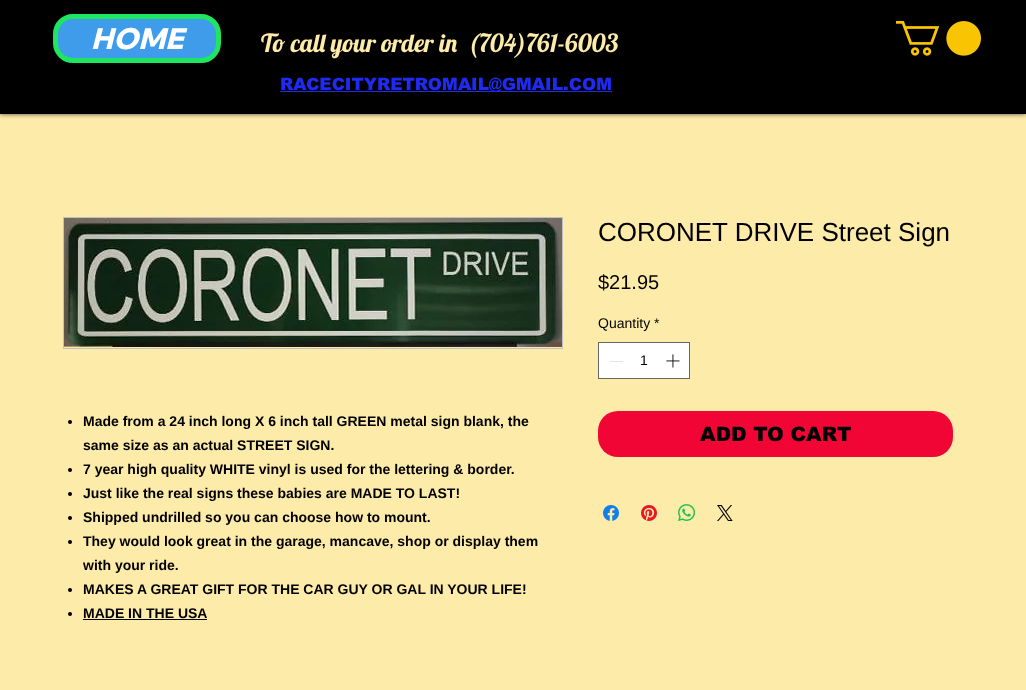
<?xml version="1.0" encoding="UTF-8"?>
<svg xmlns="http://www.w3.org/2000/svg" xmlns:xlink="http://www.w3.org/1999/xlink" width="1026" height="690">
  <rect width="100%" height="100%" fill="#fdeba9" />
  <rect width="1026" height="114" fill="#000000" fill-opacity="0.7" filter="blur(2.5px)" />
  <rect width="1026" height="114" fill="#000000" />
  <rect x="55.5" y="16.5" width="163" height="44" rx="17.5" fill="#3e9cea" stroke="#1ee660" stroke-width="5" />
  <image x="896" y="21" width="85" height="35" xlink:href="image1.png" />
  <rect x="280" y="91" width="332" height="1" fill="#1f2bf3" />
  <rect x="598.5" y="342.5" width="91" height="36" fill="#ffffff" stroke="#666666" />
  <rect x="610" y="361" width="13" height="1" fill="#e3e3e3" />
  <image x="666" y="354" width="14" height="14" xlink:href="image2.png" />
  <rect x="598" y="411" width="355" height="46" rx="20" fill="#f00534" />
  <image x="603" y="505" width="16" height="16" xlink:href="image3.png" />
  <image x="641" y="505" width="16" height="16" xlink:href="image4.png" />
  <image x="678" y="504" width="17" height="17" xlink:href="image5.png" />
  <image x="717" y="505" width="16" height="16" xlink:href="image6.png" />
  <rect x="63.5" y="217.5" width="499" height="131" fill="none" stroke="#c0c0c0" />
  <image x="64" y="218" width="498" height="129" xlink:href="image7.png" />
  <circle cx="70" cy="422" r="2" fill="#000000" />
  <circle cx="70" cy="470" r="2" fill="#000000" />
  <circle cx="70" cy="494" r="2" fill="#000000" />
  <circle cx="70" cy="518" r="2" fill="#000000" />
  <circle cx="70" cy="542" r="2" fill="#000000" />
  <circle cx="70" cy="590" r="2" fill="#000000" />
  <circle cx="70" cy="614" r="2" fill="#000000" />
  <rect x="83" y="619" width="124" height="1" fill="#000000" />
  <text x="91" y="49" style="font-family: Wix Madefor Display; font-size: 29px; font-weight: 800; font-style: italic; fill: #ffffff">HOME</text>
  <text x="261" y="52" style="font-family: Lobster; font-size: 25px; fill: #fdeba9" xml:space="preserve">To call your order in  (704)761-6003</text>
  <text x="280" y="90" style="font-family: arial; font-size: 17px; font-weight: 900; fill: #1f2bf3">RACECITYRETROMAIL@GMAIL.COM</text>
  <text x="598" y="241" style="font-family: Liberation Sans; font-size: 26px; fill: #000000">CORONET DRIVE Street Sign</text>
  <text x="598" y="289" style="font-family: Liberation Sans; font-size: 20px; fill: #000000">$21.95</text>
  <text x="598" y="328" style="font-family: Liberation Sans; font-size: 14px; fill: #000000">Quantity *</text>
  <text x="640" y="365" style="font-family: Liberation Sans; font-size: 14px; fill: #000000">1</text>
  <text x="700" y="441" style="font-family: arial; font-size: 20px; font-weight: 900; fill: #000000">ADD TO CART</text>
  <text x="83" y="426" style="font-family: Liberation Sans; font-size: 14px; font-weight: bold; fill: #000000">Made from a 24 inch long X 6 inch tall GREEN metal sign blank, the</text>
  <text x="83" y="450" style="font-family: Liberation Sans; font-size: 14px; font-weight: bold; fill: #000000">same size as an actual STREET SIGN.</text>
  <text x="83" y="474" style="font-family: Liberation Sans; font-size: 14px; font-weight: bold; fill: #000000">7 year high quality WHITE vinyl is used for the lettering &amp; border.</text>
  <text x="83" y="498" style="font-family: Liberation Sans; font-size: 14px; font-weight: bold; fill: #000000">Just like the real signs these babies are MADE TO LAST!</text>
  <text x="83" y="522" style="font-family: Liberation Sans; font-size: 14px; font-weight: bold; fill: #000000">Shipped undrilled so you can choose how to mount.</text>
  <text x="83" y="546" style="font-family: Liberation Sans; font-size: 14px; font-weight: bold; fill: #000000">They would look great in the garage, mancave, shop or display them</text>
  <text x="83" y="570" style="font-family: Liberation Sans; font-size: 14px; font-weight: bold; fill: #000000">with your ride.</text>
  <text x="83" y="594" style="font-family: Liberation Sans; font-size: 14px; font-weight: bold; fill: #000000">MAKES A GREAT GIFT FOR THE CAR GUY OR GAL IN YOUR LIFE!</text>
  <text x="83" y="618" style="font-family: Liberation Sans; font-size: 14px; font-weight: bold; fill: #000000">MADE IN THE USA</text>
</svg>
